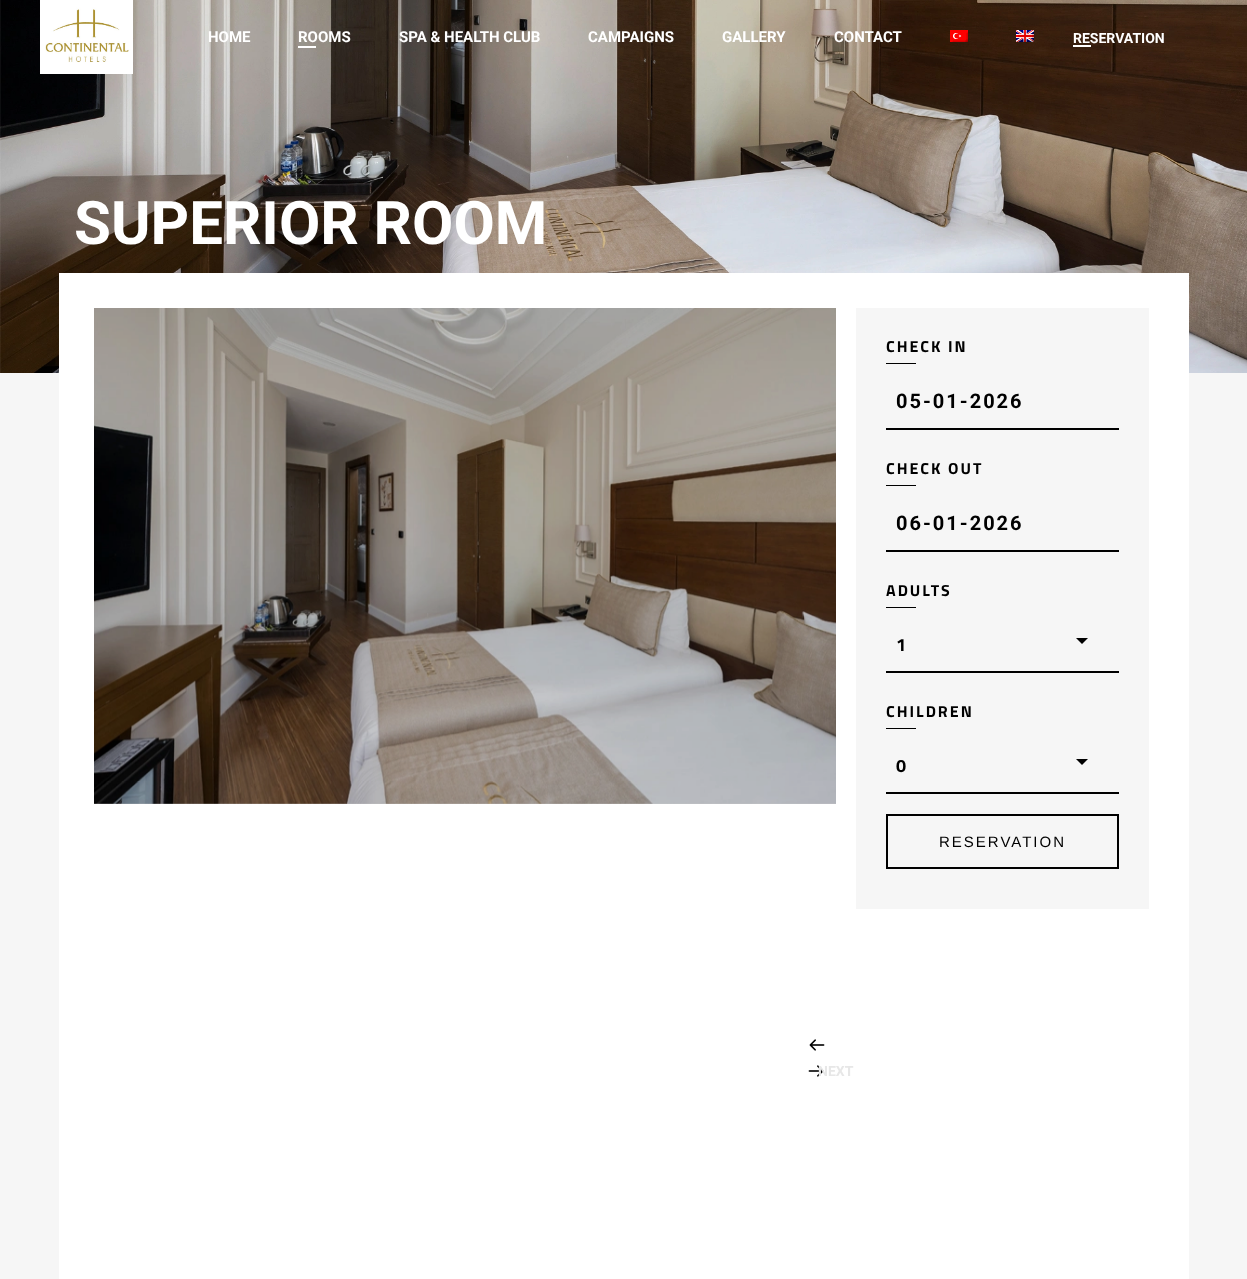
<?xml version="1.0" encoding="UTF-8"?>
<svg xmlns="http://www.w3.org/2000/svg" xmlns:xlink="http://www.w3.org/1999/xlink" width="1247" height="1279">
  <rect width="100%" height="100%" fill="#f6f6f6" />
  <image x="0" y="0" width="1247" height="373" xlink:href="image4.png" />
  <image x="40" y="0" width="93" height="74" xlink:href="image1.png" />
  <rect x="298" y="46" width="18" height="2" fill="#ffffff" />
  <image x="950" y="30" width="18" height="12" xlink:href="image2.png" />
  <image x="1016" y="30" width="18" height="12" xlink:href="image3.png" />
  <rect x="1073" y="45" width="18" height="2" fill="#ffffff" />
  <rect x="59" y="273" width="1130" height="1006" fill="#ffffff" />
  <rect x="856" y="308" width="293" height="601" fill="#f6f6f6" />
  <rect x="886" y="363" width="30" height="1" fill="#000000" />
  <rect x="886" y="428" width="233" height="2" fill="#000000" />
  <rect x="886" y="485" width="30" height="1" fill="#000000" />
  <rect x="886" y="550" width="233" height="2" fill="#000000" />
  <rect x="886" y="607" width="30" height="1" fill="#000000" />
  <rect x="886" y="671" width="233" height="2" fill="#000000" />
  <path d="M 1076 638 h 12 l -6 6 z" fill="#000000" />
  <rect x="886" y="728" width="30" height="1" fill="#000000" />
  <rect x="886" y="792" width="233" height="2" fill="#000000" />
  <path d="M 1076 759 h 12 l -6 6 z" fill="#000000" />
  <rect x="887" y="815" width="231" height="53" fill="none" stroke="#000000" stroke-width="2" />
  <image x="94" y="308" width="742" height="496" xlink:href="image5.png" />
  <rect x="94" y="308" width="742" height="496" fill="#000000" fill-opacity="0.2" />
  <image x="809" y="1039" width="16" height="12" xlink:href="image6.png" />
  <image x="808" y="1065" width="16" height="12" xlink:href="image7.png" />
  <text x="208" y="42" style="font-family: Roboto; font-size: 15px; font-weight: bold; fill: #ffffff">HOME</text>
  <text x="298" y="42" style="font-family: Roboto; font-size: 15px; font-weight: bold; fill: #ffffff">ROOMS</text>
  <text x="399" y="42" style="font-family: Roboto; font-size: 15px; font-weight: bold; fill: #ffffff">SPA &amp; HEALTH CLUB</text>
  <text x="588" y="42" style="font-family: Roboto; font-size: 15px; font-weight: bold; fill: #ffffff">CAMPAIGNS</text>
  <text x="722" y="42" style="font-family: Roboto; font-size: 15px; font-weight: bold; fill: #ffffff">GALLERY</text>
  <text x="834" y="42" style="font-family: Roboto; font-size: 15px; font-weight: bold; fill: #ffffff">CONTACT</text>
  <text x="1073" y="43" style="font-family: Roboto; font-size: 14px; font-weight: bold; fill: #ffffff">RESERVATION</text>
  <text x="74" y="244" style="font-family: Roboto; font-size: 60px; font-weight: bold; fill: #ffffff">SUPERIOR ROOM</text>
  <text x="886" y="352" style="font-family: Titillium Web; font-size: 16px; font-weight: bold; letter-spacing: 2px; fill: #000000">CHECK IN</text>
  <text x="896" y="408" style="font-family: Roboto; font-size: 20px; font-weight: bold; letter-spacing: 2px; fill: #000000">05-01-2026</text>
  <text x="886" y="474" style="font-family: Titillium Web; font-size: 16px; font-weight: bold; letter-spacing: 2px; fill: #000000">CHECK OUT</text>
  <text x="896" y="530" style="font-family: Roboto; font-size: 20px; font-weight: bold; letter-spacing: 2px; fill: #000000">06-01-2026</text>
  <text x="886" y="596" style="font-family: Titillium Web; font-size: 16px; font-weight: bold; letter-spacing: 2px; fill: #000000">ADULTS</text>
  <text x="896" y="651" style="font-family: Titillium Web; font-size: 18px; font-weight: bold; letter-spacing: 1px; fill: #000000">1</text>
  <text x="886" y="717" style="font-family: Titillium Web; font-size: 16px; font-weight: bold; letter-spacing: 2px; fill: #000000">CHILDREN</text>
  <text x="896" y="772" style="font-family: Titillium Web; font-size: 18px; font-weight: bold; letter-spacing: 1px; fill: #000000">0</text>
  <text x="939" y="847" style="font-family: Liberation Sans; font-size: 15px; letter-spacing: 2px; fill: #000000">RESERVATION</text>
  <text x="818" y="1076" style="font-family: Roboto; font-size: 14px; font-weight: bold; fill: #e7e7e7">NEXT</text>
</svg>
